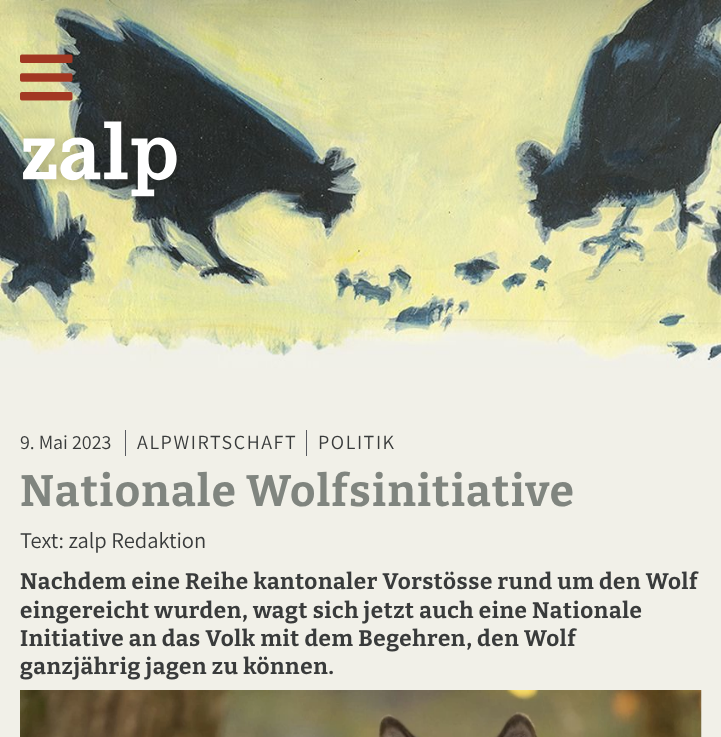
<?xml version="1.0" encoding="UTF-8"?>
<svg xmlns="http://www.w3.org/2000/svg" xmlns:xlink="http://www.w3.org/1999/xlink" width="721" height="737">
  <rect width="100%" height="100%" fill="#f1f0e8" />
  <image x="0" y="0" width="721" height="368" xlink:href="image1.png" />
  <image x="20" y="54" width="53" height="47" xlink:href="image2.png" />
  <rect x="16" y="-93" width="692" height="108" fill="#000000" fill-opacity="0.25" filter="blur(31px)" />
  <image x="16" y="118" width="164" height="86" xlink:href="image3.png" />
  <rect x="125" y="430" width="1" height="26" fill="#595b61" />
  <rect x="306" y="430" width="1" height="26" fill="#595b61" />
  <image x="20" y="690" width="682" height="47" xlink:href="image4.png" />
  <text x="20" y="449" style="font-family: Assistant; font-size: 20px; font-weight: 200; fill: #393b3b">9. Mai 2023</text>
  <text x="137" y="449" style="font-family: Assistant; font-size: 20px; font-weight: 200; letter-spacing: 1.6px; fill: #393b3b">ALPWIRTSCHAFT</text>
  <text x="318" y="449" style="font-family: Assistant; font-size: 20px; font-weight: 200; letter-spacing: 1.6px; fill: #393b3b">POLITIK</text>
  <text x="20" y="506" style="font-family: Bitter; font-size: 44px; font-weight: 100; letter-spacing: 1.3px; fill: #80857f">Nationale Wolfsinitiative</text>
  <text x="20" y="548" style="font-family: Assistant; font-size: 22.5px; font-weight: 200; fill: #393b3b">Text: zalp Redaktion</text>
  <text x="20" y="589" style="font-family: Bitter; font-size: 22.5px; font-weight: 100; letter-spacing: 0.6px; fill: #393b3b">Nachdem eine Reihe kantonaler Vorstösse rund um den Wolf</text>
  <text x="20" y="618" style="font-family: Bitter; font-size: 22.5px; font-weight: 100; letter-spacing: 0.6px; fill: #393b3b">eingereicht wurden, wagt sich jetzt auch eine Nationale</text>
  <text x="20" y="646" style="font-family: Bitter; font-size: 22.5px; font-weight: 100; letter-spacing: 0.6px; fill: #393b3b">Initiative an das Volk mit dem Begehren, den Wolf</text>
  <text x="20" y="674" style="font-family: Bitter; font-size: 22.5px; font-weight: 100; letter-spacing: 0.6px; fill: #393b3b">ganzjährig jagen zu können.</text>
</svg>
